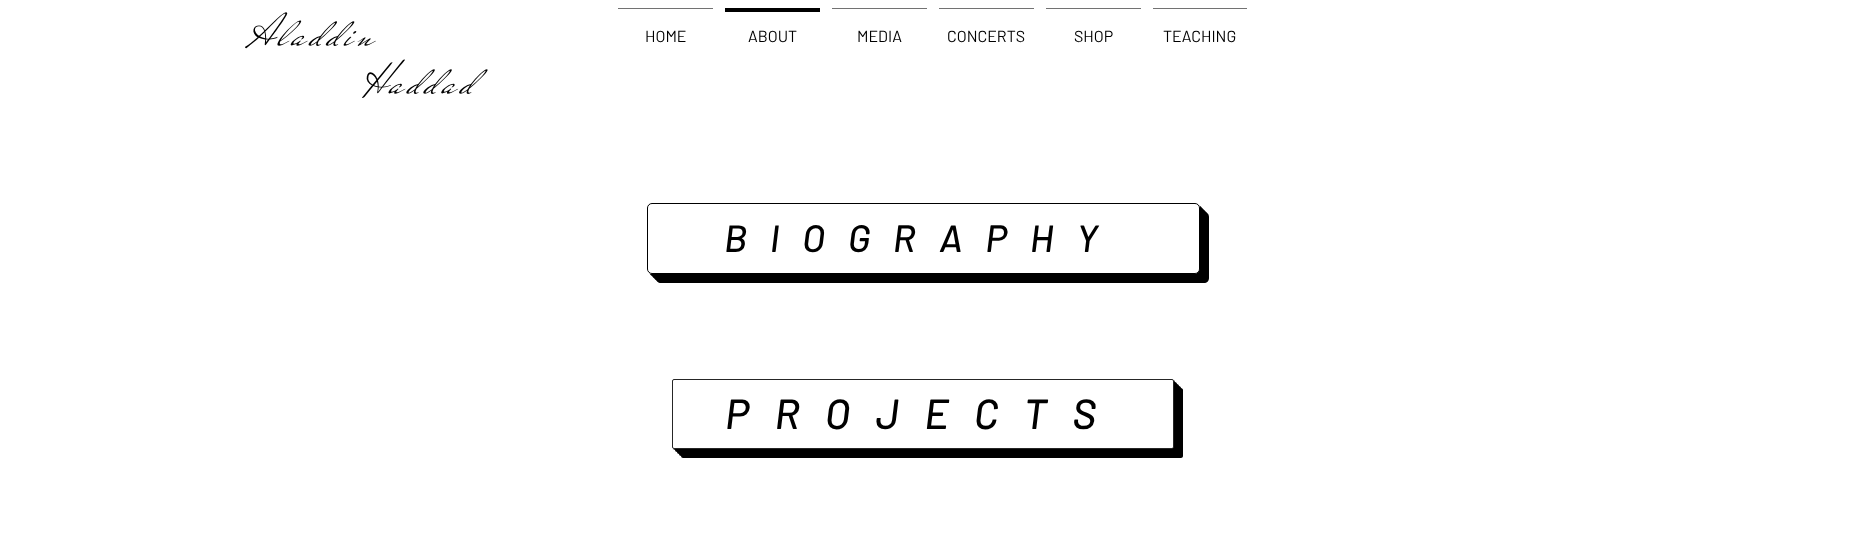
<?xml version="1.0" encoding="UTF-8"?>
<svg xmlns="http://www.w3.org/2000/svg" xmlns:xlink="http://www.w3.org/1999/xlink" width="1866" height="546">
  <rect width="100%" height="100%" fill="#ffffff" />
  <rect x="618" y="8" width="95" height="1" fill="#727272" />
  <rect x="725" y="8" width="95" height="4" fill="#000000" />
  <rect x="832" y="8" width="95" height="1" fill="#727272" />
  <rect x="939" y="8" width="95" height="1" fill="#727272" />
  <rect x="1046" y="8" width="95" height="1" fill="#727272" />
  <rect x="1153" y="8" width="94" height="1" fill="#727272" />
  <path d="M 656 274 v 4 c 0 3 2 5 5 5 h 543 c 3 0 5 -2 5 -5 v -61 c 0 -3 -2 -5 -5 -5 h -4 v 57 c 0 3 -2 5 -5 5 z" fill="#000000" />
  <path d="M 654 274 v 2 c 0 3 2 5 5 5 h 543 c 3 0 5 -2 5 -5 v -61 c 0 -3 -2 -5 -5 -5 h -2 v 59 c 0 3 -2 5 -5 5 z" fill="#000000" />
  <path d="M 652 274 c 0 3 2 5 5 5 h 543 c 3 0 5 -2 5 -5 v -61 c 0 -3 -2 -5 -5 -5 v 61 c 0 3 -2 5 -5 5 z" fill="#000000" />
  <path d="M 650 274 c 1 2 3 3 5 3 h 543 c 3 0 5 -2 5 -5 v -61 c 0 -2 -1 -4 -3 -5 v 53 c 0 3 2 15 -5 15 z" fill="#000000" />
  <path d="M 649 273 c 1 1 2 2 4 2 h 543 c 3 0 5 -2 5 -5 v -61 c 0 -2 -1 -3 -2 -4 c 1 1 1 2 1 3 v 61 c 0 3 -2 5 -5 5 h -543 c -1 0 -2 0 -3 -1 z" fill="#000000" />
  <rect x="647.5" y="203.5" width="552" height="70" rx="4.5" fill="none" stroke="#000000" />
  <path d="M 681 449 v 7 c 0 1 1 2 2 2 h 498 c 1 0 2 -1 2 -2 v -66 c 0 -1 -1 -2 -2 -2 h -7 v 59 c 0 1 -1 2 -2 2 z" fill="#000000" />
  <path d="M 679 449 v 5 c 0 1 1 2 2 2 h 498 c 1 0 2 -1 2 -2 v -66 c 0 -1 -1 -2 -2 -2 h -5 v 61 c 0 1 -1 2 -2 2 z" fill="#000000" />
  <path d="M 677 449 v 3 c 0 1 1 2 2 2 h 498 c 1 0 2 -1 2 -2 v -66 c 0 -1 -1 -2 -2 -2 h -3 v 63 c 0 1 -1 2 -2 2 z" fill="#000000" />
  <path d="M 675 449 v 1 c 0 1 1 2 2 2 h 498 c 1 0 2 -1 2 -2 v -66 c 0 -1 -1 -2 -2 -2 h -1 v 65 c 0 1 -1 2 -2 2 z" fill="#000000" />
  <path d="M 673 449 l 2 1 h 498 l 2 -1 v -67 l -1 -2 v 56 c 0 4 2 13 -2 13 z" fill="#000000" />
  <rect x="672.5" y="379.5" width="501" height="69" rx="1.5" fill="none" stroke="#000000" stroke-opacity="0.85" />
  <text x="249" y="45" style="font-family: Mr De Haviland; font-size: 46px; font-style: italic; letter-spacing: 4.5px; fill: #000000">Aladdin</text>
  <text x="363" y="93" style="font-family: Mr De Haviland; font-size: 46px; font-style: italic; letter-spacing: 4.5px; fill: #000000">Haddad</text>
  <text x="645" y="42" style="font-family: Barlow; font-size: 16px; fill: #000000">HOME</text>
  <text x="748" y="42" style="font-family: Barlow; font-size: 16px; fill: #000000">ABOUT</text>
  <text x="857" y="42" style="font-family: Barlow; font-size: 16px; fill: #000000">MEDIA</text>
  <text x="947" y="42" style="font-family: Barlow; font-size: 16px; fill: #000000">CONCERTS</text>
  <text x="1074" y="42" style="font-family: Barlow; font-size: 16px; fill: #000000">SHOP</text>
  <text x="1163" y="42" style="font-family: Barlow; font-size: 16px; fill: #000000">TEACHING</text>
  <text x="724" y="252" style="font-family: Barlow; font-size: 38px; font-weight: 500; font-style: italic; letter-spacing: 22.75px; fill: #000000">BIOGRAPHY</text>
  <text x="725" y="429" style="font-family: Barlow; font-size: 42px; font-weight: 500; font-style: italic; letter-spacing: 25.25px; fill: #000000">PROJECTS</text>
</svg>
